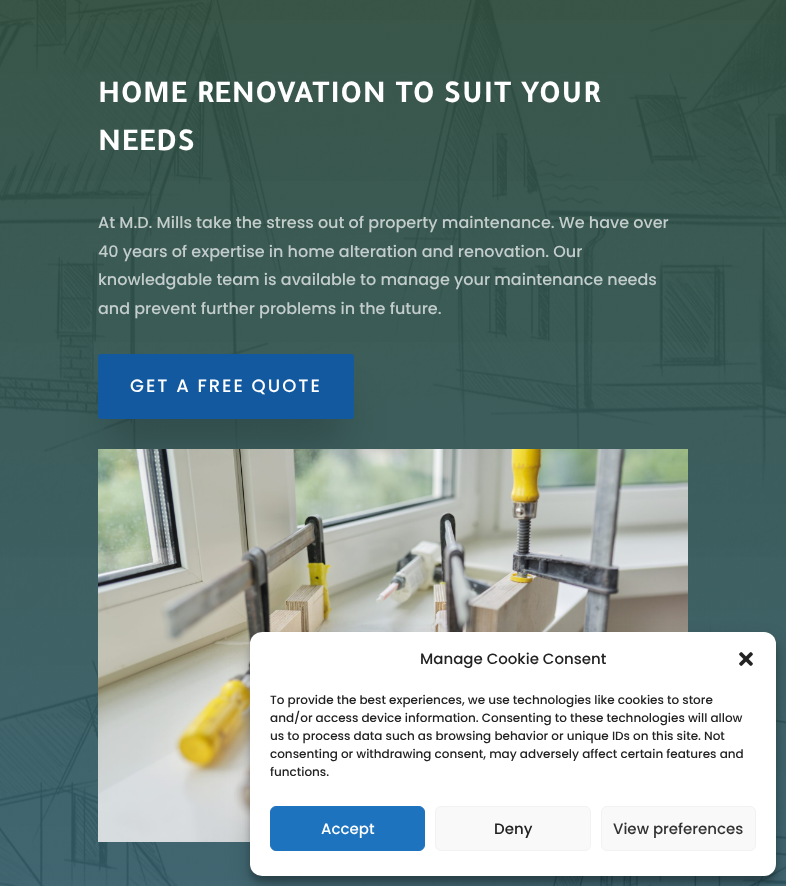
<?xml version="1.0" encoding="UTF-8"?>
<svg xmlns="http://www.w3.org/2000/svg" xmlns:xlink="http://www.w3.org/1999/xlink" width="786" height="886">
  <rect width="100%" height="100%" fill="#ffffff" />
  <image x="0" y="0" width="786" height="886" xlink:href="image1.png" />
  <rect x="108" y="397" width="236" height="45" fill="#000000" fill-opacity="0.2" filter="blur(20px)" />
  <rect x="99" y="355" width="254" height="63" rx="2" fill="#13599f" stroke="#13599f" stroke-width="2" />
  <image x="98" y="449" width="590" height="393" xlink:href="image2.png" />
  <rect x="250" y="638" width="526" height="244" rx="12" fill="#000000" fill-opacity="0.23" filter="blur(3px)" />
  <rect x="250" y="642" width="526" height="244" rx="12" fill="#000000" fill-opacity="0.19" filter="blur(10px)" />
  <rect x="250" y="632" width="526" height="244" rx="12" fill="#ffffff" />
  <image x="739" y="652" width="14" height="14" xlink:href="image3.png" />
  <rect x="270.5" y="806.5" width="154" height="44" rx="5.5" fill="#1e73be" stroke="#1e73be" />
  <rect x="435.5" y="806.5" width="155" height="44" rx="5.5" fill="#f9f9f9" stroke="#f2f2f2" />
  <rect x="601.5" y="806.5" width="154" height="44" rx="5.5" fill="#f9f9f9" stroke="#f2f2f2" />
  <text x="98" y="102" style="font-family: Tajawal; font-size: 32px; font-weight: bold; letter-spacing: 1px; fill: #ffffff">HOME RENOVATION TO SUIT YOUR</text>
  <text x="98" y="150" style="font-family: Tajawal; font-size: 32px; font-weight: bold; letter-spacing: 1px; fill: #ffffff">NEEDS</text>
  <text x="98" y="228" style="font-family: Poppins; font-size: 16px; font-weight: 500; fill: #c3cdcb">At M.D. Mills take the stress out of property maintenance. We have over</text>
  <text x="98" y="257" style="font-family: Poppins; font-size: 16px; font-weight: 500; fill: #c3cdcb">40 years of expertise in home alteration and renovation. Our</text>
  <text x="98" y="285" style="font-family: Poppins; font-size: 16px; font-weight: 500; fill: #c3cdcb">knowledgable team is available to manage your maintenance needs</text>
  <text x="98" y="314" style="font-family: Poppins; font-size: 16px; font-weight: 500; fill: #c3cdcb">and prevent further problems in the future.</text>
  <text x="130" y="392" style="font-family: Poppins; font-size: 18px; font-weight: 500; letter-spacing: 2px; fill: #ffffff">GET A FREE QUOTE</text>
  <text x="420" y="664" style="font-family: Poppins; font-size: 15px; font-weight: 500; fill: #222222">Manage Cookie Consent</text>
  <text x="270" y="704" style="font-family: Poppins; font-size: 12px; font-weight: 500; fill: #222222">To provide the best experiences, we use technologies like cookies to store</text>
  <text x="270" y="722" style="font-family: Poppins; font-size: 12px; font-weight: 500; fill: #222222">and/or access device information. Consenting to these technologies will allow</text>
  <text x="270" y="740" style="font-family: Poppins; font-size: 12px; font-weight: 500; fill: #222222">us to process data such as browsing behavior or unique IDs on this site. Not</text>
  <text x="270" y="758" style="font-family: Poppins; font-size: 12px; font-weight: 500; fill: #222222">consenting or withdrawing consent, may adversely affect certain features and</text>
  <text x="270" y="776" style="font-family: Poppins; font-size: 12px; font-weight: 500; fill: #222222">functions.</text>
  <text x="321" y="834" style="font-family: Poppins; font-size: 15px; font-weight: 500; fill: #ffffff">Accept</text>
  <text x="494" y="834" style="font-family: Poppins; font-size: 15px; font-weight: 500; fill: #222222">Deny</text>
  <text x="613" y="834" style="font-family: Poppins; font-size: 15px; font-weight: 500; fill: #333333">View preferences</text>
</svg>
